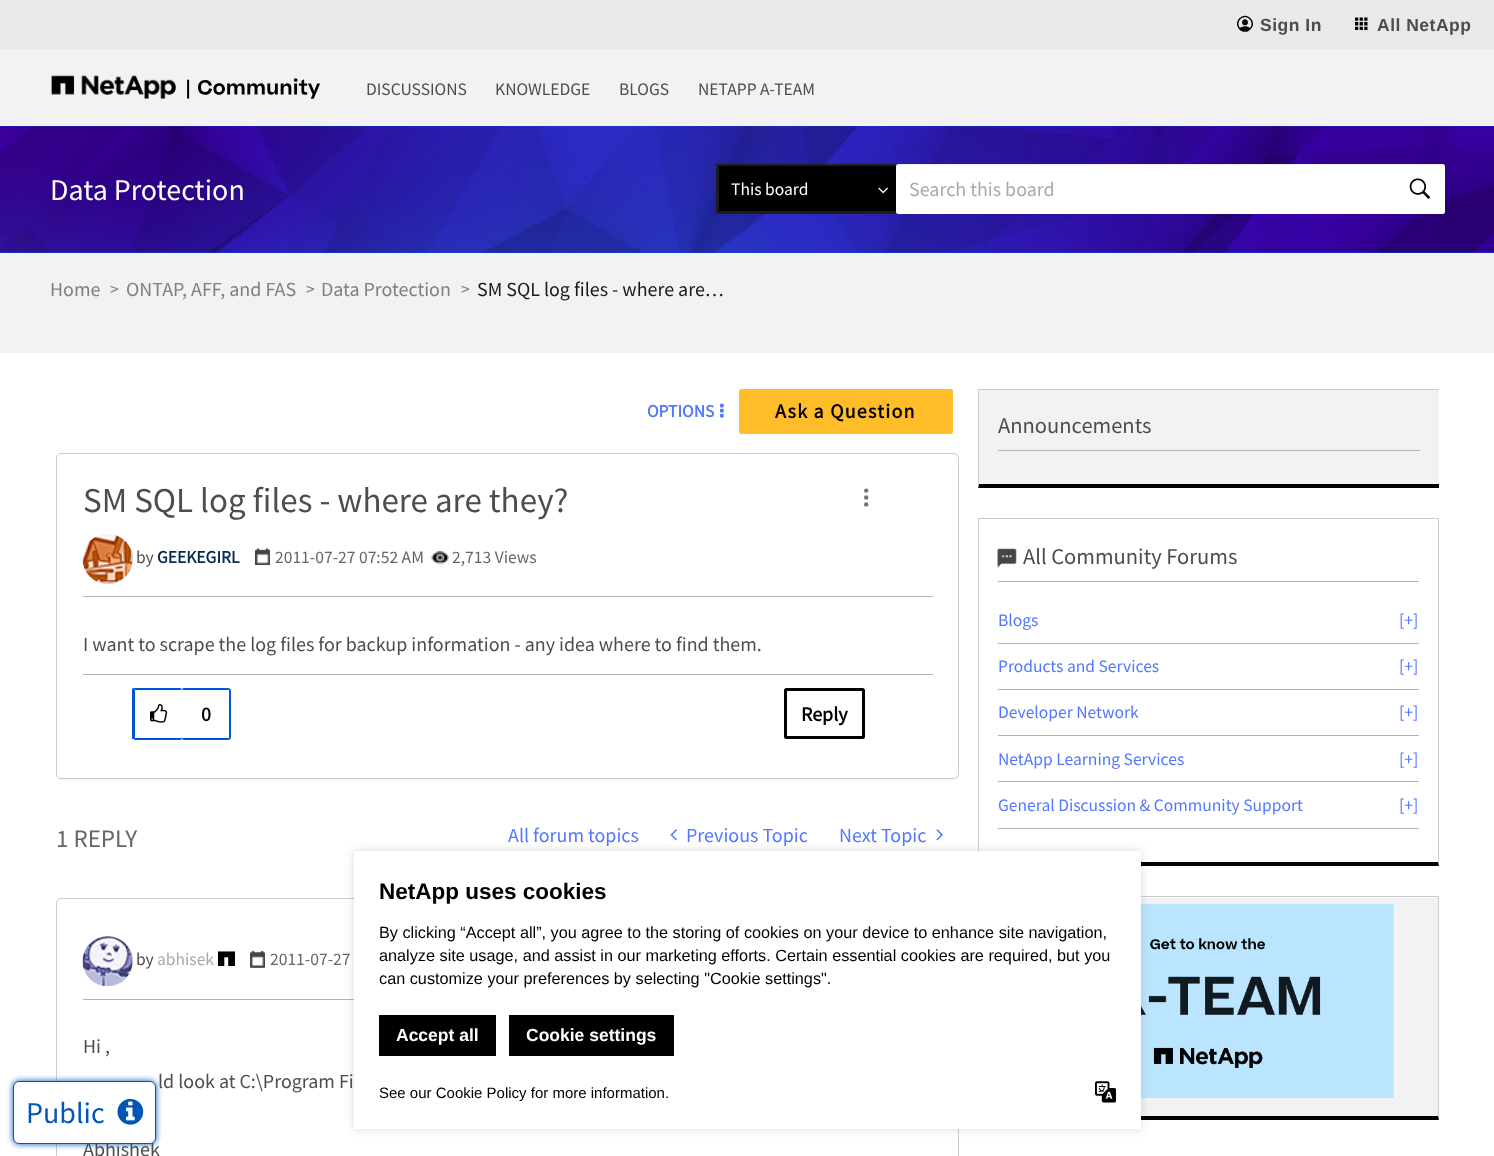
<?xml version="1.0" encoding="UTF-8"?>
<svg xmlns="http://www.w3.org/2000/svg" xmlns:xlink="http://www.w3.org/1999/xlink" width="1494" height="1156">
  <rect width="100%" height="100%" fill="#ffffff" />
  <rect width="1494" height="49" fill="#e9e9e9" />
  <image x="1237" y="15" width="16" height="17" xlink:href="image1.png" />
  <image x="1355" y="17" width="13" height="13" xlink:href="image2.png" />
  <rect y="49" width="1494" height="77" fill="#f2f2f2" />
  <image x="51" y="75" width="269" height="24" xlink:href="image3.png" />
  <rect y="253" width="1494" height="100" fill="#f2f2f2" />
  <rect y="126" width="1494" height="127" fill="#0054d7" />
  <image x="0" y="126" width="1494" height="127" xlink:href="image4.png" />
  <rect x="716" y="164" width="180" height="50" fill="#000000" />
  <path d="M 716 164 h 180 v 2 h -177 z" fill="#1d1d1d" />
  <path d="M 896 214 h -180 l 3 -3 h 177 z" fill="#1d1d1d" />
  <path d="M 716 214 v -50 l 3 2 v 45 z" fill="#c4c4c4" fill-opacity="0.15" />
  <image x="878" y="187" width="10" height="7" xlink:href="image5.png" />
  <rect x="896" y="164" width="549" height="50" rx="2.5" fill="#ffffff" />
  <path d="M 899 165 h 543 c 2 0 3 1 3 3 v -2 c 0 -1 -1 -2 -3 -2 h -544 c -1 0 -2 1 -2 2 v 2 c 0 -2 1 -3 3 -3 z" fill="#000000" fill-opacity="0.07" />
  <image x="1409" y="178" width="22" height="21" xlink:href="image6.png" />
  <image x="720" y="403" width="4" height="15" xlink:href="image7.png" />
  <rect x="56" y="435" width="903" height="345" rx="5" fill="#000000" fill-opacity="0.05" filter="blur(0.5px)" />
  <rect x="740.5" y="390.5" width="211" height="42" rx="1" fill="#ffbd29" stroke="#ffbd29" stroke-width="3" />
  <rect x="56" y="434" width="903" height="345" rx="5" fill="#ffffff" />
  <rect x="56.5" y="453.5" width="902" height="325" rx="4.5" fill="#ffffff" stroke="#cccccc" />
  <rect x="83" y="596" width="850" height="1" fill="#b3b3b3" />
  <rect x="83" y="534" width="50" height="50" rx="25" fill="#c4c4c4" filter="blur(0.5px)" />
  <image x="82" y="534" width="51" height="50" xlink:href="image8.png" />
  <image x="255" y="548" width="15" height="17" xlink:href="image9.png" />
  <image x="255" y="548" width="15" height="17" xlink:href="image11.png" />
  <image x="255" y="548" width="15" height="17" xlink:href="image10.png" />
  <image x="431" y="551" width="18" height="13" xlink:href="image12.png" />
  <circle cx="866.2" cy="490.6" r="2.2" fill="#747474" />
  <circle cx="866.2" cy="497.5" r="2.2" fill="#747474" />
  <circle cx="866.2" cy="504.4" r="2.2" fill="#747474" />
  <rect x="83" y="674" width="850" height="1" fill="#b3b3b3" />
  <rect x="181.5" y="688.5" width="49" height="51" rx="2" fill="none" stroke="#0054d7" />
  <path d="M 135 688 h -2 l 2 2 h 46 l 1 -1 l -2 -1 z" fill="#0054d7" />
  <path d="M 182 739 v -50 l -1 1 v 47 z" fill="#ffffff" />
  <path d="M 135 740 h 45 l 2 -1 l -1 -2 v 1 h -46 l -2 1 z" fill="#0054d7" />
  <path d="M 135 690 v 48 l -2 1 h -1 v -50 l 1 -1 z" fill="#0054d7" />
  <image x="150" y="704" width="18" height="19" xlink:href="image13.png" />
  <rect x="183" y="689" width="47" height="1" fill="#0054d7" />
  <rect x="229" y="689" width="1" height="50" fill="#0054d7" />
  <rect x="183" y="738" width="47" height="1" fill="#0054d7" />
  <rect x="785.5" y="689.5" width="78" height="48" rx="1" fill="none" stroke="#000000" stroke-width="3" />
  <image x="670" y="829" width="7" height="12" xlink:href="image14.png" />
  <image x="936" y="829" width="7" height="12" xlink:href="image15.png" />
  <rect x="56.5" y="898.5" width="902" height="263" rx="4.5" fill="none" stroke="#cccccc" />
  <rect x="83" y="999" width="271" height="1" fill="#b3b3b3" />
  <rect x="83" y="936" width="50" height="50" rx="25" fill="#c4c4c4" filter="blur(0.5px)" />
  <image x="82" y="936" width="51" height="50" xlink:href="image16.png" />
  <image x="218" y="951" width="17" height="15" xlink:href="image17.png" />
  <image x="250" y="951" width="15" height="17" xlink:href="image18.png" />
  <image x="250" y="951" width="15" height="17" xlink:href="image20.png" />
  <image x="250" y="951" width="15" height="17" xlink:href="image19.png" />
  <rect x="978" y="390" width="461" height="98" fill="#f2f2f2" />
  <rect x="978" y="389" width="461" height="1" fill="#cccccc" />
  <path d="M 1439 488 h -461 l 1 -4 h 460 z" fill="#000000" />
  <path d="M 978 488 v -99 l 1 1 v 94 z" fill="#cccccc" />
  <rect x="998" y="450" width="422" height="1" fill="#b3b3b3" />
  <rect x="978" y="518" width="461" height="1" fill="#cccccc" />
  <path d="M 1439 518 v 348 l -1 -4 v -343 z" fill="#cccccc" />
  <path d="M 1439 866 h -461 l 1 -4 h 459 z" fill="#000000" />
  <path d="M 978 866 v -348 l 1 1 v 343 z" fill="#cccccc" />
  <rect x="998" y="581" width="421" height="1" fill="#b3b3b3" />
  <image x="997" y="548" width="20" height="20" xlink:href="image21.png" />
  <rect x="998" y="643" width="421" height="1" fill="#b3b3b3" />
  <rect x="998" y="689" width="421" height="1" fill="#b3b3b3" />
  <rect x="998" y="735" width="421" height="1" fill="#b3b3b3" />
  <rect x="998" y="781" width="421" height="1" fill="#b3b3b3" />
  <rect x="998" y="828" width="421" height="1" fill="#b3b3b3" />
  <rect x="1141" y="898" width="297" height="218" fill="#f2f2f2" />
  <rect x="1141" y="896" width="298" height="1" fill="#cccccc" />
  <path d="M 1439 896 v 224 l -1 -4 v -218 z" fill="#cccccc" />
  <path d="M 1439 1120 h -461 l 1 -4 h 459 z" fill="#000000" />
  <image x="1141" y="904" width="253" height="194" xlink:href="image22.png" />
  <rect x="13" y="1081" width="143" height="63" rx="6" fill="#0057b7" filter="blur(3px)" />
  <rect x="354" y="851" width="787" height="278" fill="#000000" fill-opacity="0.15" filter="blur(5px)" />
  <rect x="354" y="851" width="787" height="278" fill="#ffffff" />
  <rect x="379" y="1015" width="117" height="41" fill="#000000" />
  <rect x="509" y="1015" width="165" height="41" fill="#000000" />
  <image x="1095" y="1081" width="21" height="22" xlink:href="image24.png" />
  <text x="1260" y="31" style="font-family: Liberation Sans; font-size: 17.5px; font-weight: bold; letter-spacing: 0.5px; fill: #4d4d4d">Sign In</text>
  <text x="1377" y="31" style="font-family: Liberation Sans; font-size: 17.5px; font-weight: bold; letter-spacing: 0.5px; fill: #4d4d4d">All NetApp</text>
  <text x="366" y="95" style="font-family: Source Sans Pro; font-size: 17.5px; fill: #4d4d4d">DISCUSSIONS</text>
  <text x="495" y="95" style="font-family: Source Sans Pro; font-size: 17.5px; fill: #4d4d4d">KNOWLEDGE</text>
  <text x="619" y="95" style="font-family: Source Sans Pro; font-size: 17.5px; fill: #4d4d4d">BLOGS</text>
  <text x="698" y="95" style="font-family: Source Sans Pro; font-size: 17.5px; fill: #4d4d4d">NETAPP A-TEAM</text>
  <text x="50" y="200" style="font-family: Source Sans Pro; font-size: 30px; fill: #ffffff">Data Protection</text>
  <text x="731" y="195" style="font-family: Source Sans Pro; font-size: 17.5px; fill: #ffffff">This board</text>
  <text x="909" y="196" style="font-family: Source Sans Pro; font-size: 20px; fill: #a9a9a9">Search this board</text>
  <text x="50" y="296" style="font-family: Source Sans Pro; font-size: 20px; fill: #808080">Home</text>
  <text x="110" y="295" style="font-family: Source Sans Pro; font-size: 17.5px; fill: #808080">&gt;</text>
  <text x="126" y="296" style="font-family: Source Sans Pro; font-size: 20px; fill: #808080">ONTAP, AFF, and FAS</text>
  <text x="306" y="295" style="font-family: Source Sans Pro; font-size: 17.5px; fill: #808080">&gt;</text>
  <text x="321" y="296" style="font-family: Source Sans Pro; font-size: 20px; fill: #808080">Data Protection</text>
  <text x="461" y="295" style="font-family: Source Sans Pro; font-size: 17.5px; fill: #808080">&gt;</text>
  <text x="477" y="296" style="font-family: Source Sans Pro; font-size: 20px; fill: #1a1a1a">SM SQL log files - where are…</text>
  <text x="647" y="417" style="font-family: Source Sans Pro; font-size: 17.5px; font-weight: bold; fill: #5278ff">OPTIONS</text>
  <text x="775" y="418" style="font-family: Source Sans Pro; font-size: 20px; font-weight: bold; letter-spacing: 1.25px; fill: #000000">Ask a Question</text>
  <text x="83" y="512" style="font-family: Source Sans Pro; font-size: 35px; fill: #4d4d4d">SM SQL log files - where are they?</text>
  <text x="136" y="563" style="font-family: Source Sans Pro; font-size: 17.5px; fill: #4d4d4d">by</text>
  <text x="157" y="563" style="font-family: Source Sans Pro; font-size: 17.5px; font-weight: bold; fill: #062b4c">GEEKEGIRL</text>
  <text x="275" y="563" style="font-family: Source Sans Pro; font-size: 17.5px; fill: #666666">2011-07-27 07:52 AM</text>
  <text x="452" y="563" style="font-family: Source Sans Pro; font-size: 17.5px; fill: #666666">2,713 Views</text>
  <text x="83" y="651" style="font-family: Source Sans Pro; font-size: 20px; fill: #4d4d4d">I want to scrape the log files for backup information - any idea where to find them.</text>
  <text x="201" y="721" style="font-family: Source Sans Pro; font-size: 20px; font-weight: bold; fill: #000000">0</text>
  <text x="801" y="721" style="font-family: Source Sans Pro; font-size: 20px; font-weight: bold; fill: #000000">Reply</text>
  <text x="56" y="847" style="font-family: Source Sans Pro; font-size: 25px; fill: #666666">1 REPLY</text>
  <text x="508" y="842" style="font-family: Source Sans Pro; font-size: 20px; fill: #5278ff">All forum topics</text>
  <text x="686" y="842" style="font-family: Source Sans Pro; font-size: 20px; fill: #5278ff">Previous Topic</text>
  <text x="839" y="842" style="font-family: Source Sans Pro; font-size: 20px; fill: #5278ff">Next Topic</text>
  <text x="136" y="965" style="font-family: Source Sans Pro; font-size: 17.5px; fill: #4d4d4d">by</text>
  <text x="157" y="965" style="font-family: Source Sans Pro; font-size: 17.5px; fill: #a9a9a9">abhisek</text>
  <text x="270" y="965" style="font-family: Source Sans Pro; font-size: 17.5px; fill: #666666">2011-07-27</text>
  <text x="83" y="1053" style="font-family: Source Sans Pro; font-size: 20px; fill: #4d4d4d">Hi ,</text>
  <text x="158" y="1088" style="font-family: Source Sans Pro; font-size: 20px; fill: #4d4d4d">ld look at C:\Program Fi</text>
  <text x="83" y="1156" style="font-family: Source Sans Pro; font-size: 20px; fill: #4d4d4d">Abhishek</text>
  <text x="998" y="433" style="font-family: Source Sans Pro; font-size: 22.5px; fill: #4d4d4d">Announcements</text>
  <text x="1023" y="564" style="font-family: Source Sans Pro; font-size: 22.5px; fill: #4d4d4d">All Community Forums</text>
  <text x="998" y="626" style="font-family: Source Sans Pro; font-size: 17.5px; fill: #5278ff">Blogs</text>
  <text x="1399" y="626" style="font-family: Source Sans Pro; font-size: 17.5px; fill: #5278ff">[+]</text>
  <text x="998" y="672" style="font-family: Source Sans Pro; font-size: 17.5px; fill: #5278ff">Products and Services</text>
  <text x="1399" y="672" style="font-family: Source Sans Pro; font-size: 17.5px; fill: #5278ff">[+]</text>
  <text x="998" y="718" style="font-family: Source Sans Pro; font-size: 17.5px; fill: #5278ff">Developer Network</text>
  <text x="1399" y="718" style="font-family: Source Sans Pro; font-size: 17.5px; fill: #5278ff">[+]</text>
  <text x="998" y="765" style="font-family: Source Sans Pro; font-size: 17.5px; fill: #5278ff">NetApp Learning Services</text>
  <text x="1399" y="765" style="font-family: Source Sans Pro; font-size: 17.5px; fill: #5278ff">[+]</text>
  <text x="998" y="811" style="font-family: Source Sans Pro; font-size: 17.5px; fill: #5278ff">General Discussion &amp; Community Support</text>
  <text x="1399" y="811" style="font-family: Source Sans Pro; font-size: 17.5px; fill: #5278ff">[+]</text>
  <rect x="13.5" y="1081.5" width="142" height="62" rx="5.5" fill="#ffffff" stroke="#0057b7" />
  <text x="26" y="1123" style="font-family: Source Sans Pro; font-size: 30px; fill: #0057b7">Public</text>
  <image x="117" y="1098" width="27" height="27" xlink:href="image23.png" />
  <text x="379" y="899" style="font-family: Liberation Sans; font-size: 22.5px; font-weight: bold; fill: #000000">NetApp uses cookies</text>
  <text x="379" y="938" style="font-family: Liberation Sans; font-size: 16.25px; fill: #000000">By clicking “Accept all”, you agree to the storing of cookies on your device to enhance site navigation,</text>
  <text x="379" y="961" style="font-family: Liberation Sans; font-size: 16.25px; fill: #000000">analyze site usage, and assist in our marketing efforts. Certain essential cookies are required, but you</text>
  <text x="379" y="984" style="font-family: Liberation Sans; font-size: 16.25px; fill: #000000">can customize your preferences by selecting "Cookie settings".</text>
  <text x="396" y="1041" style="font-family: Liberation Sans; font-size: 17.5px; font-weight: bold; fill: #ffffff">Accept all</text>
  <text x="526" y="1041" style="font-family: Liberation Sans; font-size: 17.5px; font-weight: bold; fill: #ffffff">Cookie settings</text>
  <text x="379" y="1098" style="font-family: Liberation Sans; font-size: 15px; fill: #000000">See our Cookie Policy for more information.</text>
</svg>
